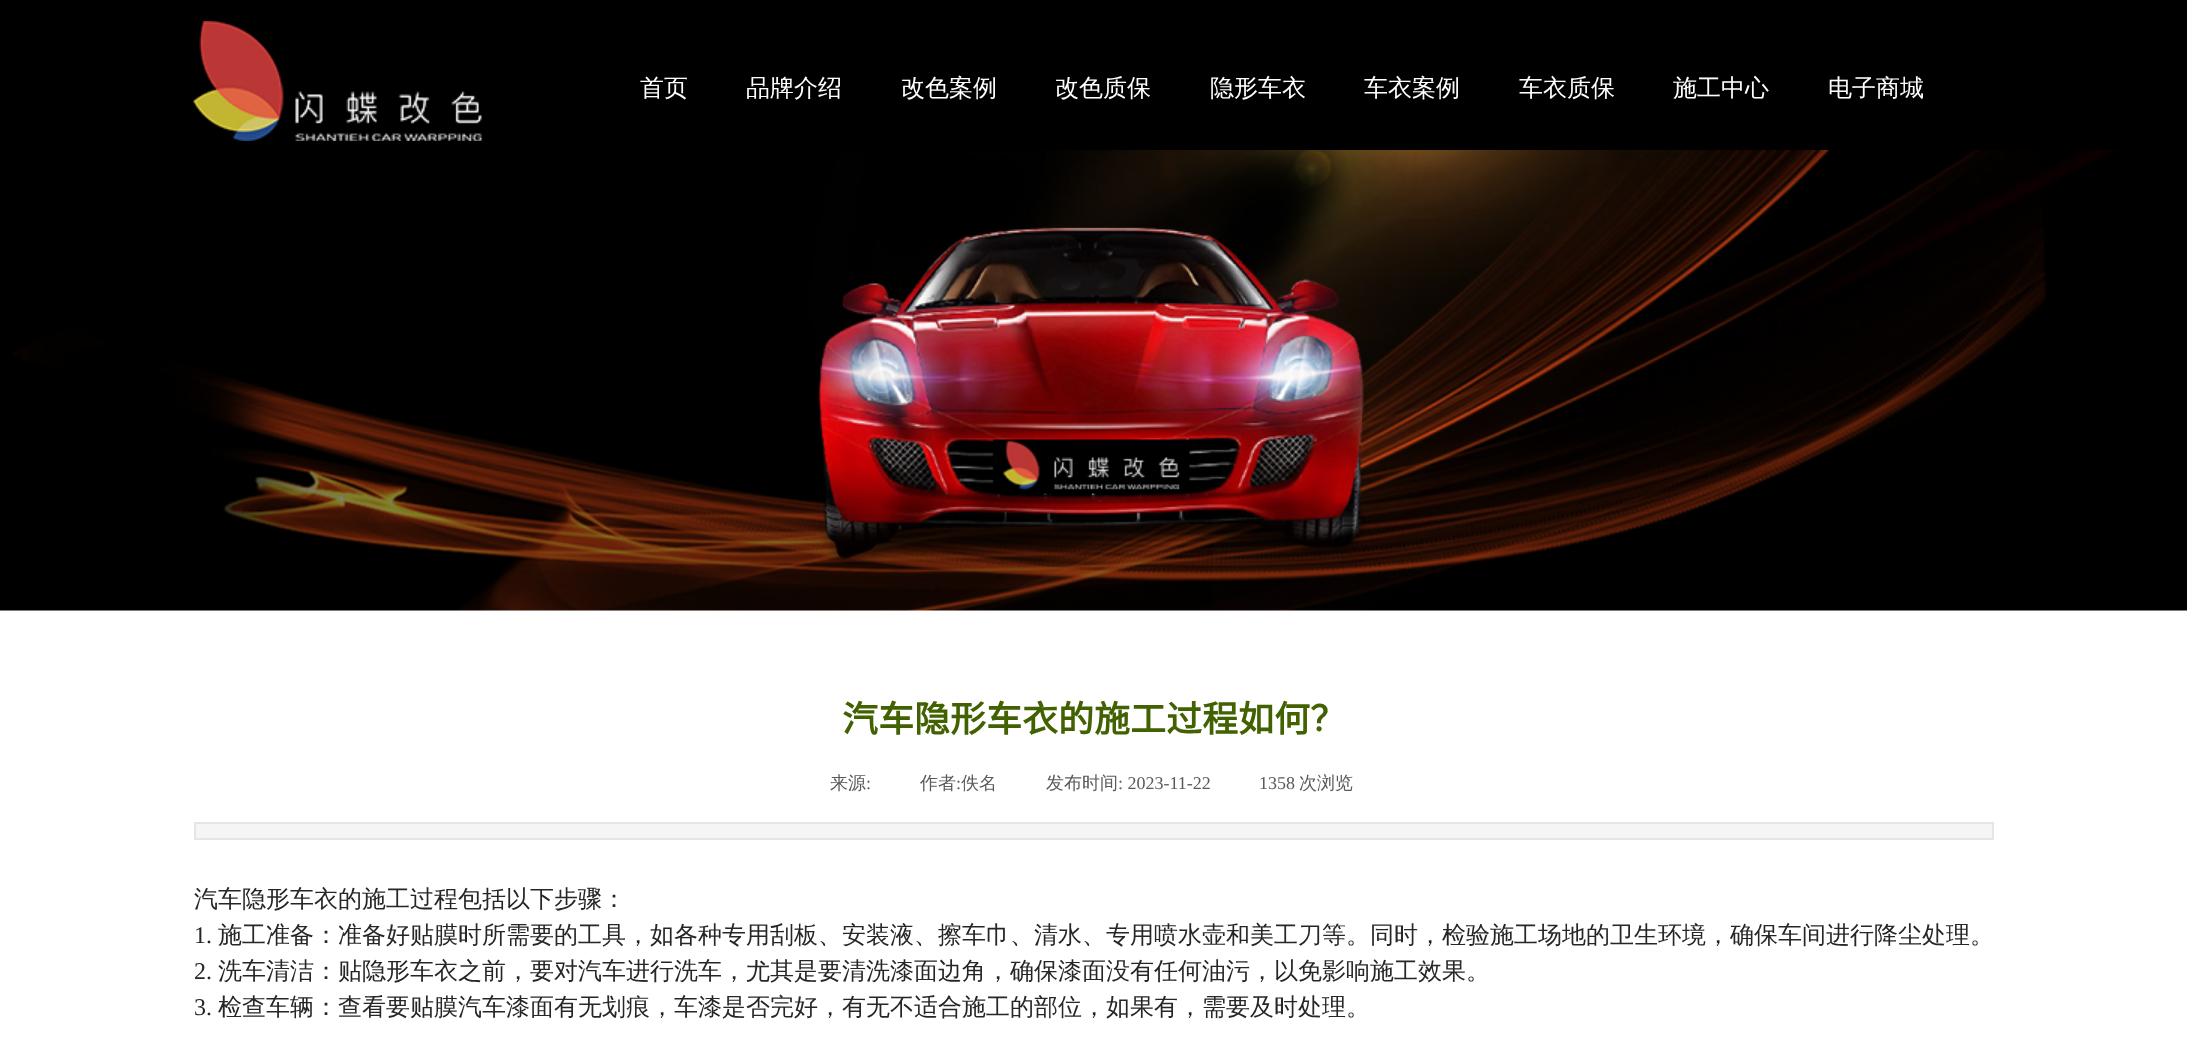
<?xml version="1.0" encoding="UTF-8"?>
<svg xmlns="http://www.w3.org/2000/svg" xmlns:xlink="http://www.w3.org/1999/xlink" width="2187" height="1041">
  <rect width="100%" height="100%" fill="#ffffff" />
  <rect width="2187" height="150" fill="#000000" />
  <image x="193" y="21" width="289" height="120" xlink:href="image1.png" />
  <image x="0" y="150" width="2187" height="461" xlink:href="image2.png" />
  <rect x="195" y="823" width="1798" height="16" fill="#f5f5f5" stroke="#e5e5e5" stroke-width="2" />
  <text x="640" y="96" style="font-family: WenQuanYi Zen Hei; font-size: 24px; font-weight: 500; fill: #ffffff">首页</text>
  <text x="746" y="96" style="font-family: WenQuanYi Zen Hei; font-size: 24px; font-weight: 500; fill: #ffffff">品牌介绍</text>
  <text x="901" y="96" style="font-family: WenQuanYi Zen Hei; font-size: 24px; font-weight: 500; fill: #ffffff">改色案例</text>
  <text x="1055" y="96" style="font-family: WenQuanYi Zen Hei; font-size: 24px; font-weight: 500; fill: #ffffff">改色质保</text>
  <text x="1210" y="96" style="font-family: WenQuanYi Zen Hei; font-size: 24px; font-weight: 500; fill: #ffffff">隐形车衣</text>
  <text x="1364" y="96" style="font-family: WenQuanYi Zen Hei; font-size: 24px; font-weight: 500; fill: #ffffff">车衣案例</text>
  <text x="1519" y="96" style="font-family: WenQuanYi Zen Hei; font-size: 24px; font-weight: 500; fill: #ffffff">车衣质保</text>
  <text x="1673" y="96" style="font-family: WenQuanYi Zen Hei; font-size: 24px; font-weight: 500; fill: #ffffff">施工中心</text>
  <text x="1828" y="96" style="font-family: WenQuanYi Zen Hei; font-size: 24px; font-weight: 500; fill: #ffffff">电子商城</text>
  <text x="842" y="732" style="font-family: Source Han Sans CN; font-size: 36px; font-weight: bold; fill: #426100">汽车隐形车衣的施工过程如何？</text>
  <text x="830" y="789" style="font-family: WenQuanYi Zen Hei; font-size: 18px; font-weight: 500; fill: #5a5a5a">来源</text>
  <text x="866" y="789" style="font-family: Liberation Serif; font-size: 18px; fill: #5a5a5a">:</text>
  <text x="920" y="789" style="font-family: WenQuanYi Zen Hei; font-size: 18px; font-weight: 500; fill: #5a5a5a">作者</text>
  <text x="956" y="789" style="font-family: Liberation Serif; font-size: 18px; fill: #5a5a5a">:</text>
  <text x="961" y="789" style="font-family: WenQuanYi Zen Hei; font-size: 18px; font-weight: 500; fill: #5a5a5a">佚名</text>
  <text x="1046" y="789" style="font-family: WenQuanYi Zen Hei; font-size: 18px; font-weight: 500; fill: #5a5a5a">发布时间</text>
  <text x="1118" y="789" style="font-family: Liberation Serif; font-size: 18px; fill: #5a5a5a">: 2023-11-22</text>
  <text x="1259" y="789" style="font-family: Liberation Serif; font-size: 18px; fill: #5a5a5a">1358</text>
  <text x="1299" y="789" style="font-family: WenQuanYi Zen Hei; font-size: 18px; font-weight: 500; fill: #5a5a5a">次浏览</text>
  <text x="194" y="907" style="font-family: WenQuanYi Zen Hei; font-size: 24px; font-weight: 500; fill: #262626">汽车隐形车衣的施工过程包括以下步骤：</text>
  <text x="194" y="943" style="font-family: Liberation Serif; font-size: 24px; fill: #262626">1.</text>
  <text x="218" y="943" style="font-family: WenQuanYi Zen Hei; font-size: 24px; font-weight: 500; fill: #262626">施工准备：准备好贴膜时所需要的工具，如各种专用刮板、安装液、擦车巾、清水、专用喷水壶和美工刀等。同时，检验施工场地的卫生环境，确保车间进行降尘处理。</text>
  <text x="194" y="979" style="font-family: Liberation Serif; font-size: 24px; fill: #262626">2.</text>
  <text x="218" y="979" style="font-family: WenQuanYi Zen Hei; font-size: 24px; font-weight: 500; fill: #262626">洗车清洁：贴隐形车衣之前，要对汽车进行洗车，尤其是要清洗漆面边角，确保漆面没有任何油污，以免影响施工效果。</text>
  <text x="194" y="1015" style="font-family: Liberation Serif; font-size: 24px; fill: #262626">3.</text>
  <text x="218" y="1015" style="font-family: WenQuanYi Zen Hei; font-size: 24px; font-weight: 500; fill: #262626">检查车辆：查看要贴膜汽车漆面有无划痕，车漆是否完好，有无不适合施工的部位，如果有，需要及时处理。</text>
</svg>
